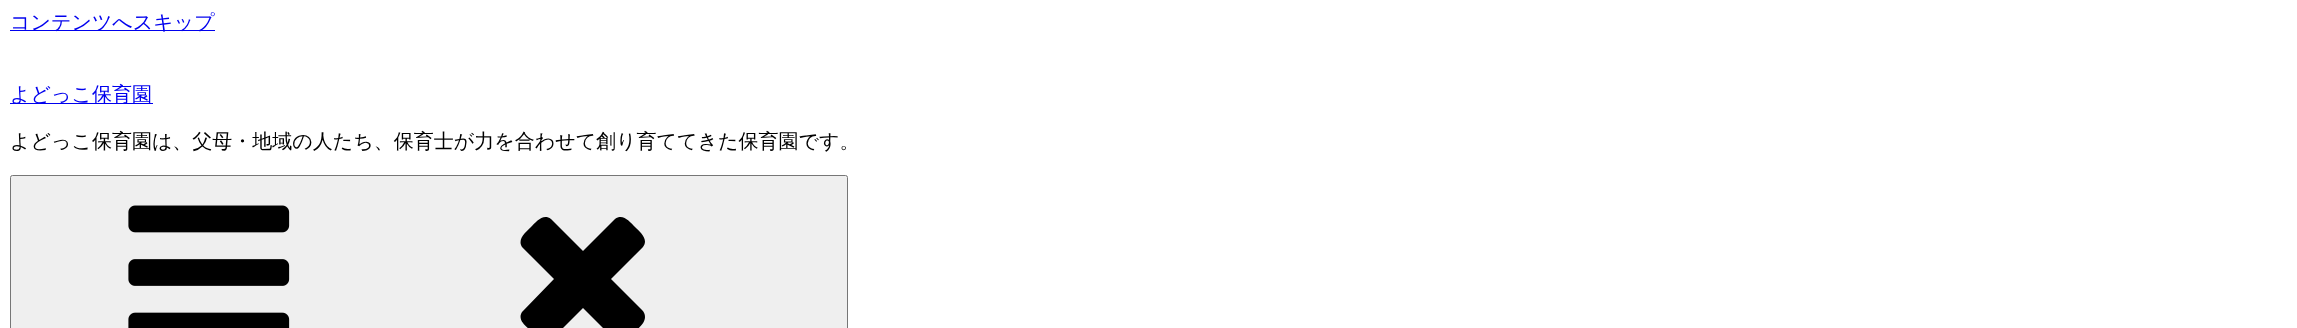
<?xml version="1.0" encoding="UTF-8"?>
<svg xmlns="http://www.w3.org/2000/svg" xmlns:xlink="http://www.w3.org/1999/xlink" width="2297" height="328">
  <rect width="100%" height="100%" fill="#ffffff" />
  <rect x="10" y="30" width="205" height="1" fill="#0000ee" />
  <rect x="10" y="103" width="143" height="1" fill="#0000ee" />
  <rect x="10.5" y="175.5" width="837" height="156" rx="2" fill="#efefef" stroke="#767676" />
  <image x="128" y="205" width="162" height="123" xlink:href="image1.png" />
  <path d="M 645 317 c 0 7 -8 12 -12 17 l -7 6 c -9 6 -17 -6 -23 -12 l -20 -20 l -32 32 c -8 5 -15 -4 -20 -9 c -5 -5 -14 -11 -9 -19 l 32 -33 l -32 -32 c -5 -8 4 -15 9 -20 c 5 -5 12 -14 20 -8 l 32 32 l 32 -32 c 8 -6 15 3 20 8 c 5 5 14 12 8 20 l -32 32 l 31 31 c 2 2 3 4 3 7 z" fill="#000000" />
  <text x="10" y="29" style="font-family: WenQuanYi Zen Hei; font-size: 20px; font-weight: 500; fill: #0000ee">コンテンツへスキップ</text>
  <text x="10" y="101" style="font-family: WenQuanYi Zen Hei; font-size: 20px; font-weight: 500; fill: #0000ee">よどっこ保育園</text>
  <text x="10" y="148" style="font-family: WenQuanYi Zen Hei; font-size: 20px; font-weight: 500; fill: #000000">よどっこ保育園は、父母・地域の人たち、保育士が力を合わせて創り育ててきた保育園です。</text>
</svg>
